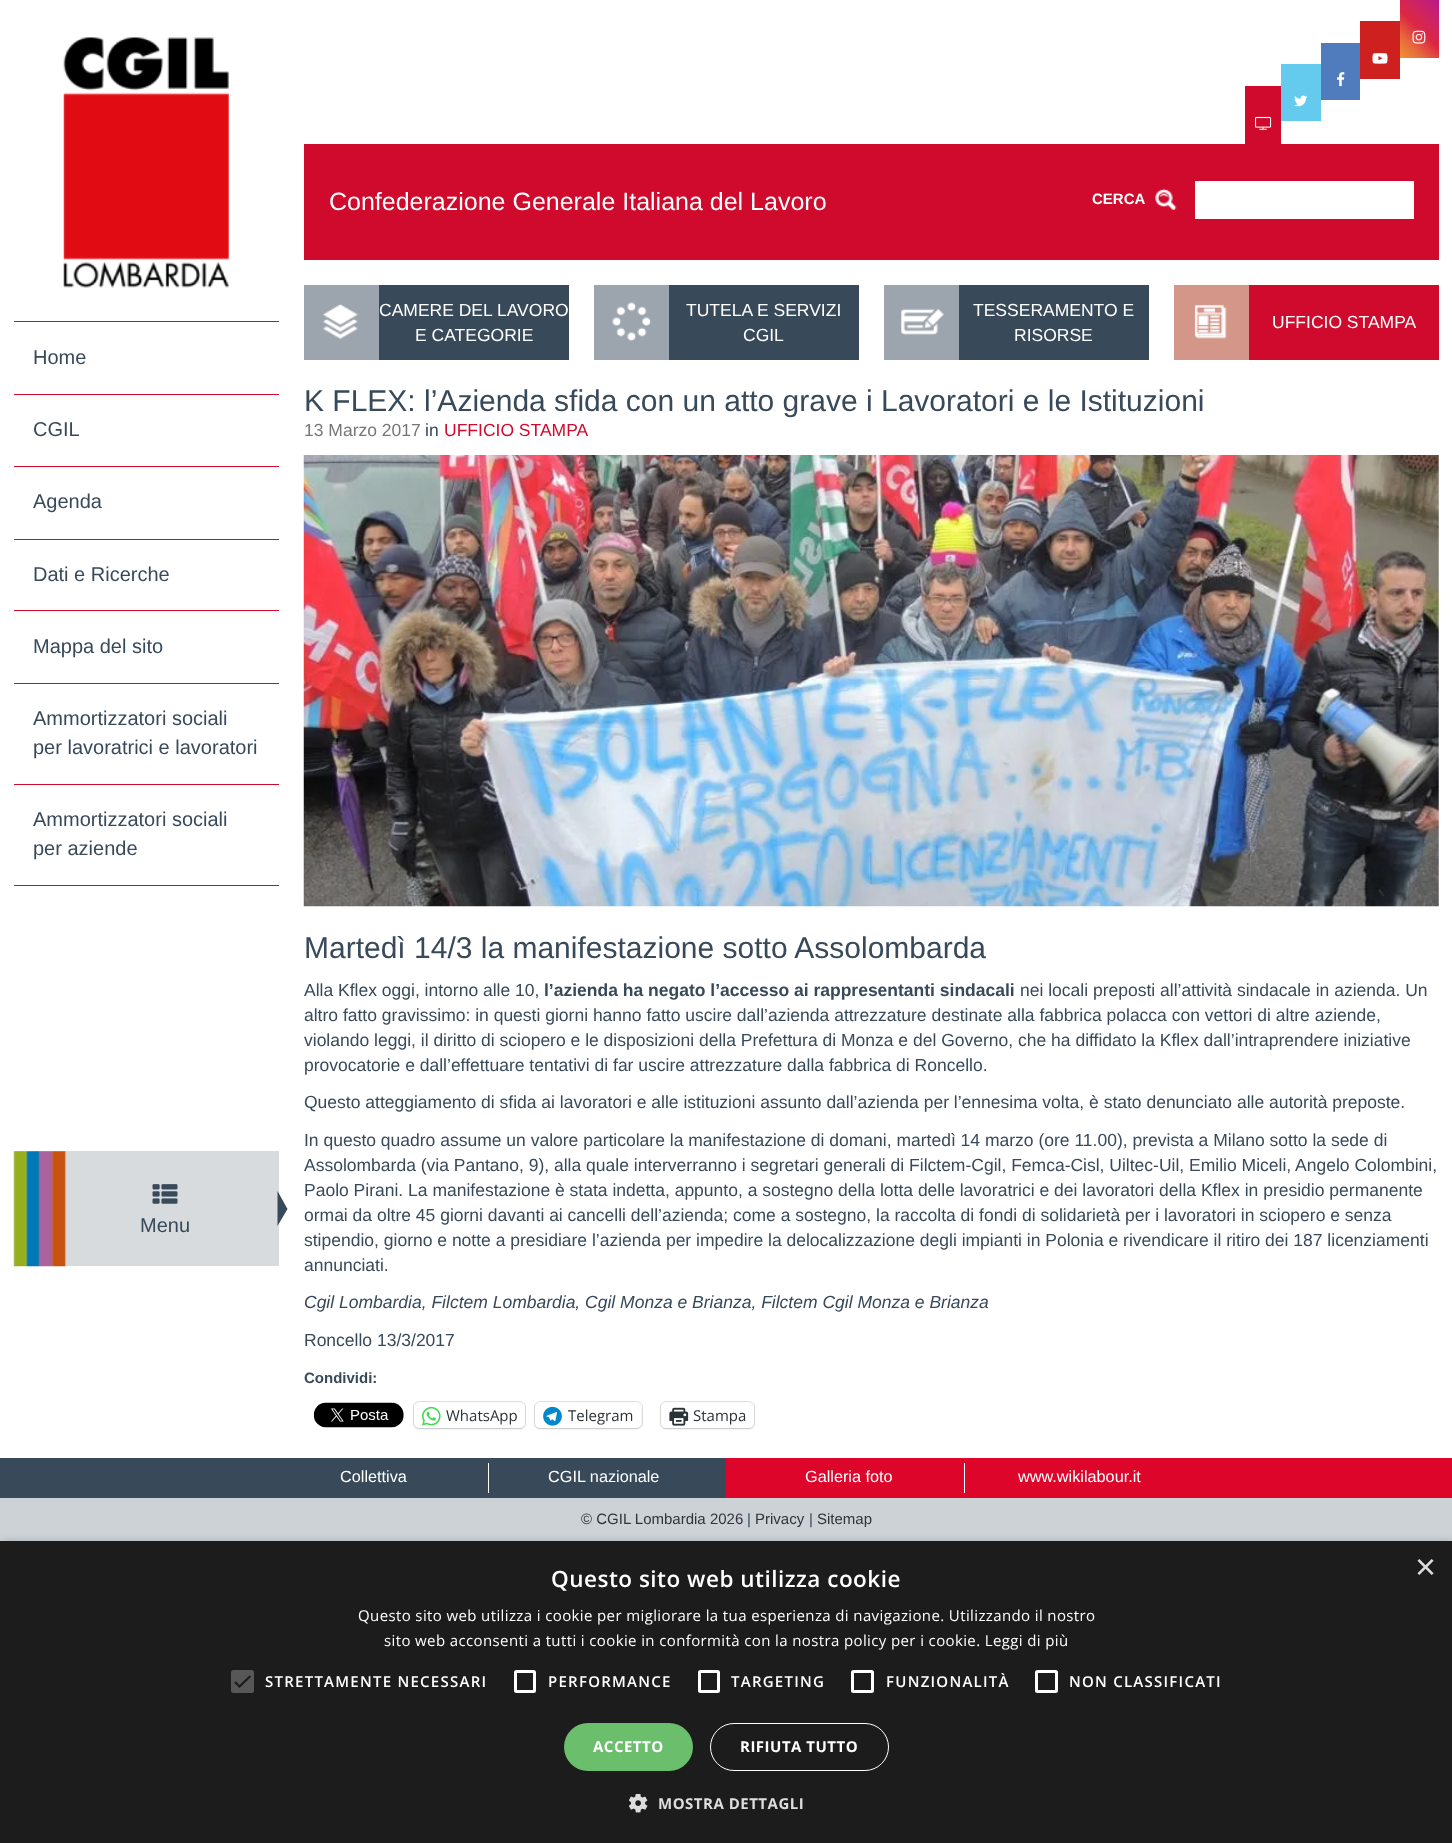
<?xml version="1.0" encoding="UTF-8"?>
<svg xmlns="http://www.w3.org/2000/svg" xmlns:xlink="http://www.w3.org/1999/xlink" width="1452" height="1843">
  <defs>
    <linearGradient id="g1" gradientUnits="userSpaceOnUse" x1="1395" y1="53" x2="1443" y2="4.7"><stop offset="0" stop-color="#f09433" /><stop offset="0.25" stop-color="#e6683c" /><stop offset="0.5" stop-color="#dc2743" /><stop offset="0.75" stop-color="#cc2366" /><stop offset="1" stop-color="#bc1888" /></linearGradient>
  </defs>
  <rect width="100%" height="100%" fill="#ffffff" />
  <image x="63" y="37" width="166" height="251" xlink:href="image1.png" />
  <rect x="14" y="321" width="265" height="1" fill="#cf0a2c" />
  <rect x="14" y="394" width="265" height="1" fill="#cf0a2c" />
  <rect x="14" y="466" width="265" height="1" fill="#cf0a2c" />
  <rect x="14" y="539" width="265" height="1" fill="#cf0a2c" />
  <rect x="14" y="610" width="265" height="1" fill="#cf0a2c" />
  <rect x="14" y="683" width="265" height="1" fill="#cf0a2c" />
  <rect x="14" y="784" width="265" height="1" fill="#cf0a2c" />
  <rect x="14" y="885" width="265" height="1" fill="#cf0a2c" />
  <rect x="14" y="1151" width="265" height="115" fill="#d7dbde" />
  <image x="13" y="1151" width="54" height="116" xlink:href="image2.png" />
  <image x="152" y="1184" width="26" height="20" xlink:href="image3.png" />
  <path d="M 277.5 1226 v -35 l 10 18 z" fill="#38495a" />
  <rect x="1245" y="86" width="36" height="58" fill="#cf0a2c" />
  <image x="1255" y="116" width="17" height="14" xlink:href="image4.png" />
  <rect x="1281" y="64" width="40" height="57" fill="#64cbee" />
  <image x="1294" y="95" width="14" height="12" xlink:href="image5.png" />
  <rect x="1321" y="43" width="39" height="57" fill="#507cbd" />
  <image x="1337" y="72" width="8" height="15" xlink:href="image6.png" />
  <rect x="1360" y="21" width="40" height="58" fill="#cd201f" />
  <image x="1372" y="53" width="16" height="11" xlink:href="image7.png" />
  <rect x="1400" width="39" height="58" fill="url(#g1)" />
  <image x="1412" y="30" width="14" height="14" xlink:href="image8.png" />
  <rect x="304" y="144" width="1135" height="116" fill="#cf0a2c" />
  <image x="1155" y="188" width="22" height="22" xlink:href="image9.png" />
  <rect x="1195" y="181" width="219" height="38" fill="#ffffff" />
  <rect x="304" y="285" width="75" height="75" fill="#9ca4ad" />
  <image x="322" y="303" width="36" height="36" xlink:href="image10.png" />
  <rect x="379" y="285" width="190" height="75" fill="#38495a" />
  <rect x="594" y="285" width="75" height="75" fill="#9ca4ad" />
  <image x="612" y="302" width="39" height="40" xlink:href="image11.png" />
  <rect x="669" y="285" width="190" height="75" fill="#38495a" />
  <rect x="884" y="285" width="75" height="75" fill="#9ca4ad" />
  <image x="901" y="308" width="43" height="28" xlink:href="image12.png" />
  <rect x="959" y="285" width="190" height="75" fill="#38495a" />
  <rect x="1174" y="285" width="75" height="75" fill="#d49689" />
  <image x="1194" y="304" width="33" height="35" xlink:href="image13.png" />
  <rect x="1249" y="285" width="190" height="75" fill="#cf0a2c" />
  <image x="303" y="455" width="1136" height="452" xlink:href="image14.png" />
  <image x="313" y="1402" width="91" height="26" xlink:href="image15.png" />
  <rect x="413.5" y="1401.5" width="112" height="27" rx="5.5" fill="none" stroke="#e0e0e0" />
  <rect x="414" y="1404" width="111" height="25" rx="5" fill="#000000" fill-opacity="0.12" filter="blur(1px)" />
  <rect x="414" y="1403" width="111" height="25" rx="5" fill="#ffffff" />
  <image x="422" y="1406" width="19" height="20" xlink:href="image16.png" />
  <rect x="534.5" y="1401.5" width="108" height="27" rx="5.5" fill="none" stroke="#e0e0e0" />
  <rect x="535" y="1404" width="106" height="25" rx="5" fill="#000000" fill-opacity="0.12" filter="blur(1px)" />
  <rect x="535" y="1403" width="106" height="25" rx="5" fill="#ffffff" />
  <image x="543" y="1406" width="19" height="20" xlink:href="image17.png" />
  <rect x="660.5" y="1401.5" width="94" height="27" rx="5.5" fill="none" stroke="#e0e0e0" />
  <rect x="661" y="1404" width="93" height="25" rx="5" fill="#000000" fill-opacity="0.12" filter="blur(1px)" />
  <rect x="661" y="1403" width="93" height="25" rx="5" fill="#ffffff" />
  <image x="669" y="1407" width="20" height="19" xlink:href="image18.png" />
  <rect y="1458" width="726" height="40" fill="#38495a" />
  <rect x="488" y="1463" width="1" height="30" fill="#ffffff" />
  <rect x="726" y="1458" width="726" height="40" fill="#dd052a" />
  <rect x="964" y="1463" width="1" height="30" fill="#ffffff" />
  <rect y="1498" width="1452" height="43" fill="#cdd2d6" />
  <rect x="1" y="1544" width="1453" height="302" fill="#000000" fill-opacity="0.35" filter="blur(5px)" />
  <rect y="1541" width="1452" height="302" fill="#1c1c1c" />
  <rect x="231" y="1670" width="23" height="23" rx="2.5" fill="#575757" />
  <path d="M 235 1682 l 4.5 4.5 l 11 -10.5" fill="none" stroke="#1c1c1c" stroke-width="2.3" />
  <rect x="515.5" y="1671.5" width="19" height="20" rx="1" fill="none" stroke="#ffffff" stroke-width="3" />
  <rect x="699.5" y="1671.5" width="19" height="20" rx="1" fill="none" stroke="#ffffff" stroke-width="3" />
  <rect x="852.5" y="1671.5" width="20" height="20" rx="1" fill="none" stroke="#ffffff" stroke-width="3" />
  <rect x="1036.5" y="1671.5" width="20" height="20" rx="1" fill="none" stroke="#ffffff" stroke-width="3" />
  <rect x="564" y="1723" width="129" height="48" rx="24" fill="#6bbe6b" />
  <rect x="710.5" y="1723.5" width="178" height="47" rx="23.5" fill="none" stroke="#ffffff" />
  <image x="629" y="1794" width="19" height="19" xlink:href="image19.png" />
  <text x="33" y="364" style="font-family: Liberation Sans; font-size: 20px; fill: #38495a">Home</text>
  <text x="33" y="436" style="font-family: Liberation Sans; font-size: 20px; fill: #38495a">CGIL</text>
  <text x="33" y="508" style="font-family: Liberation Sans; font-size: 20px; fill: #38495a">Agenda</text>
  <text x="33" y="581" style="font-family: Liberation Sans; font-size: 20px; fill: #38495a">Dati e Ricerche</text>
  <text x="33" y="653" style="font-family: Liberation Sans; font-size: 20px; fill: #38495a">Mappa del sito</text>
  <text x="33" y="725" style="font-family: Liberation Sans; font-size: 20px; fill: #38495a">Ammortizzatori sociali</text>
  <text x="33" y="754" style="font-family: Liberation Sans; font-size: 20px; fill: #38495a">per lavoratrici e lavoratori</text>
  <text x="33" y="826" style="font-family: Liberation Sans; font-size: 20px; fill: #38495a">Ammortizzatori sociali</text>
  <text x="33" y="855" style="font-family: Liberation Sans; font-size: 20px; fill: #38495a">per aziende</text>
  <text x="140" y="1232" style="font-family: Liberation Sans; font-size: 20px; fill: #38495a">Menu</text>
  <text x="329" y="210" style="font-family: Liberation Sans; font-size: 25px; fill: #ffffff">Confederazione Generale Italiana del Lavoro</text>
  <text x="1092" y="204" style="font-family: Liberation Sans; font-size: 15px; font-weight: bold; fill: #ffffff">CERCA</text>
  <text x="379" y="316" style="font-family: Liberation Sans; font-size: 17.5px; fill: #ffffff">CAMERE DEL LAVORO</text>
  <text x="415" y="341" style="font-family: Liberation Sans; font-size: 17.5px; fill: #ffffff">E CATEGORIE</text>
  <text x="686" y="316" style="font-family: Liberation Sans; font-size: 17.5px; fill: #ffffff">TUTELA E SERVIZI</text>
  <text x="743" y="341" style="font-family: Liberation Sans; font-size: 17.5px; fill: #ffffff">CGIL</text>
  <text x="973" y="316" style="font-family: Liberation Sans; font-size: 17.5px; fill: #ffffff">TESSERAMENTO E</text>
  <text x="1014" y="341" style="font-family: Liberation Sans; font-size: 17.5px; fill: #ffffff">RISORSE</text>
  <text x="1272" y="328" style="font-family: Liberation Sans; font-size: 17.5px; fill: #ffffff">UFFICIO STAMPA</text>
  <text x="304" y="411" style="font-family: Liberation Sans; font-size: 30px; fill: #38495a">K FLEX: l’Azienda sfida con un atto grave i Lavoratori e le Istituzioni</text>
  <text x="304" y="436" style="font-family: Liberation Sans; font-size: 17.5px; fill: #777777">13 Marzo 2017</text>
  <text x="425" y="436" style="font-family: Liberation Sans; font-size: 17.5px; fill: #38495a">in</text>
  <text x="444" y="436" style="font-family: Liberation Sans; font-size: 17.5px; fill: #cf0a2c">UFFICIO STAMPA</text>
  <text x="304" y="958" style="font-family: Liberation Sans; font-size: 30px; fill: #38495a">Martedì 14/3 la manifestazione sotto Assolombarda</text>
  <text x="304" y="996" style="font-family: Liberation Sans; font-size: 17.5px; fill: #38495a">Alla Kflex oggi, intorno alle 10,</text>
  <text x="544" y="996" style="font-family: Liberation Sans; font-size: 17.5px; font-weight: bold; fill: #38495a">l’azienda ha negato l’accesso ai rappresentanti sindacali</text>
  <text x="1020" y="996" style="font-family: Liberation Sans; font-size: 17.5px; fill: #38495a">nei locali preposti all’attività sindacale in azienda. Un</text>
  <text x="304" y="1021" style="font-family: Liberation Sans; font-size: 17.5px; fill: #38495a">altro fatto gravissimo: in questi giorni hanno fatto uscire dall’azienda attrezzature destinate alla fabbrica polacca con vettori di altre aziende,</text>
  <text x="304" y="1046" style="font-family: Liberation Sans; font-size: 17.5px; fill: #38495a">violando leggi, il diritto di sciopero e le disposizioni della Prefettura di Monza e del Governo, che ha diffidato la Kflex dall’intraprendere iniziative</text>
  <text x="304" y="1071" style="font-family: Liberation Sans; font-size: 17.5px; fill: #38495a">provocatorie e dall’effettuare tentativi di far uscire attrezzature dalla fabbrica di Roncello.</text>
  <text x="304" y="1108" style="font-family: Liberation Sans; font-size: 17.5px; fill: #38495a">Questo atteggiamento di sfida ai lavoratori e alle istituzioni assunto dall’azienda per l’ennesima volta, è stato denunciato alle autorità preposte.</text>
  <text x="304" y="1146" style="font-family: Liberation Sans; font-size: 17.5px; fill: #38495a">In questo quadro assume un valore particolare la manifestazione di domani, martedì 14 marzo (ore 11.00), prevista a Milano sotto la sede di</text>
  <text x="304" y="1171" style="font-family: Liberation Sans; font-size: 17.5px; fill: #38495a">Assolombarda (via Pantano, 9), alla quale interverranno i segretari generali di Filctem-Cgil, Femca-Cisl, Uiltec-Uil, Emilio Miceli, Angelo Colombini,</text>
  <text x="304" y="1196" style="font-family: Liberation Sans; font-size: 17.5px; fill: #38495a">Paolo Pirani. La manifestazione è stata indetta, appunto, a sostegno della lotta delle lavoratrici e dei lavoratori della Kflex in presidio permanente</text>
  <text x="304" y="1221" style="font-family: Liberation Sans; font-size: 17.5px; fill: #38495a">ormai da oltre 45 giorni davanti ai cancelli dell’azienda; come a sostegno, la raccolta di fondi di solidarietà per i lavoratori in sciopero e senza</text>
  <text x="304" y="1246" style="font-family: Liberation Sans; font-size: 17.5px; fill: #38495a">stipendio, giorno e notte a presidiare l’azienda per impedire la delocalizzazione degli impianti in Polonia e rivendicare il ritiro dei 187 licenziamenti</text>
  <text x="304" y="1271" style="font-family: Liberation Sans; font-size: 17.5px; fill: #38495a">annunciati.</text>
  <text x="304" y="1308" style="font-family: Liberation Sans; font-size: 17.5px; font-style: italic; fill: #38495a">Cgil Lombardia, Filctem Lombardia, Cgil Monza e Brianza, Filctem Cgil Monza e Brianza</text>
  <text x="304" y="1346" style="font-family: Liberation Sans; font-size: 17.5px; fill: #38495a">Roncello 13/3/2017</text>
  <text x="304" y="1383" style="font-family: Liberation Sans; font-size: 15px; font-weight: bold; fill: #38495a">Condividi:</text>
  <text x="446" y="1421" style="font-family: Open Sans; font-size: 15px; fill: #2c3338">WhatsApp</text>
  <text x="568" y="1421" style="font-family: Open Sans; font-size: 15px; fill: #2c3338">Telegram</text>
  <text x="693" y="1421" style="font-family: Open Sans; font-size: 15px; fill: #2c3338">Stampa</text>
  <text x="340" y="1482" style="font-family: Liberation Sans; font-size: 16.25px; fill: #ffffff">Collettiva</text>
  <text x="548" y="1482" style="font-family: Liberation Sans; font-size: 16.25px; fill: #ffffff">CGIL nazionale</text>
  <text x="805" y="1482" style="font-family: Liberation Sans; font-size: 16.25px; fill: #ffffff">Galleria foto</text>
  <text x="1018" y="1482" style="font-family: Liberation Sans; font-size: 16.25px; fill: #ffffff">www.wikilabour.it</text>
  <text x="581" y="1524" style="font-family: Liberation Sans; font-size: 15px; fill: #32323c">© CGIL Lombardia 2026</text>
  <text x="747" y="1524" style="font-family: Liberation Sans; font-size: 15px; fill: #38495a">|</text>
  <text x="755" y="1524" style="font-family: Liberation Sans; font-size: 15px; fill: #32323c">Privacy</text>
  <text x="809" y="1524" style="font-family: Liberation Sans; font-size: 15px; fill: #38495a">|</text>
  <text x="817" y="1524" style="font-family: Liberation Sans; font-size: 15px; fill: #32323c">Sitemap</text>
  <text x="1415" y="1579" style="font-family: Liberation Sans; font-size: 36px; fill: #dddddd">×</text>
  <text x="551" y="1587" style="font-family: Open Sans; font-size: 22.5px; font-weight: 600; letter-spacing: 0.5px; fill: #ffffff">Questo sito web utilizza cookie</text>
  <text x="358" y="1621" style="font-family: Open Sans; font-size: 15px; letter-spacing: 0.38px; fill: #ffffff">Questo sito web utilizza i cookie per migliorare la tua esperienza di navigazione. Utilizzando il nostro</text>
  <text x="384" y="1646" style="font-family: Open Sans; font-size: 15px; letter-spacing: 0.38px; fill: #ffffff">sito web acconsenti a tutti i cookie in conformità con la nostra policy per i cookie. Leggi di più</text>
  <text x="265" y="1687" style="font-family: Open Sans; font-size: 15px; font-weight: 600; letter-spacing: 1.25px; fill: #ffffff">STRETTAMENTE NECESSARI</text>
  <text x="548" y="1687" style="font-family: Open Sans; font-size: 15px; font-weight: 600; letter-spacing: 1.25px; fill: #ffffff">PERFORMANCE</text>
  <text x="731" y="1687" style="font-family: Open Sans; font-size: 15px; font-weight: 600; letter-spacing: 1.25px; fill: #ffffff">TARGETING</text>
  <text x="886" y="1687" style="font-family: Open Sans; font-size: 15px; font-weight: 600; letter-spacing: 1.25px; fill: #ffffff">FUNZIONALITÀ</text>
  <text x="1069" y="1687" style="font-family: Open Sans; font-size: 15px; font-weight: 600; letter-spacing: 1.25px; fill: #ffffff">NON CLASSIFICATI</text>
  <text x="593" y="1752" style="font-family: Open Sans; font-size: 15px; font-weight: bold; letter-spacing: 0.5px; fill: #ffffff">ACCETTO</text>
  <text x="740" y="1752" style="font-family: Open Sans; font-size: 15px; font-weight: bold; letter-spacing: 0.5px; fill: #ffffff">RIFIUTA TUTTO</text>
  <text x="658" y="1809" style="font-family: Open Sans; font-size: 15px; font-weight: bold; letter-spacing: 0.5px; fill: #dddddd">MOSTRA DETTAGLI</text>
</svg>
